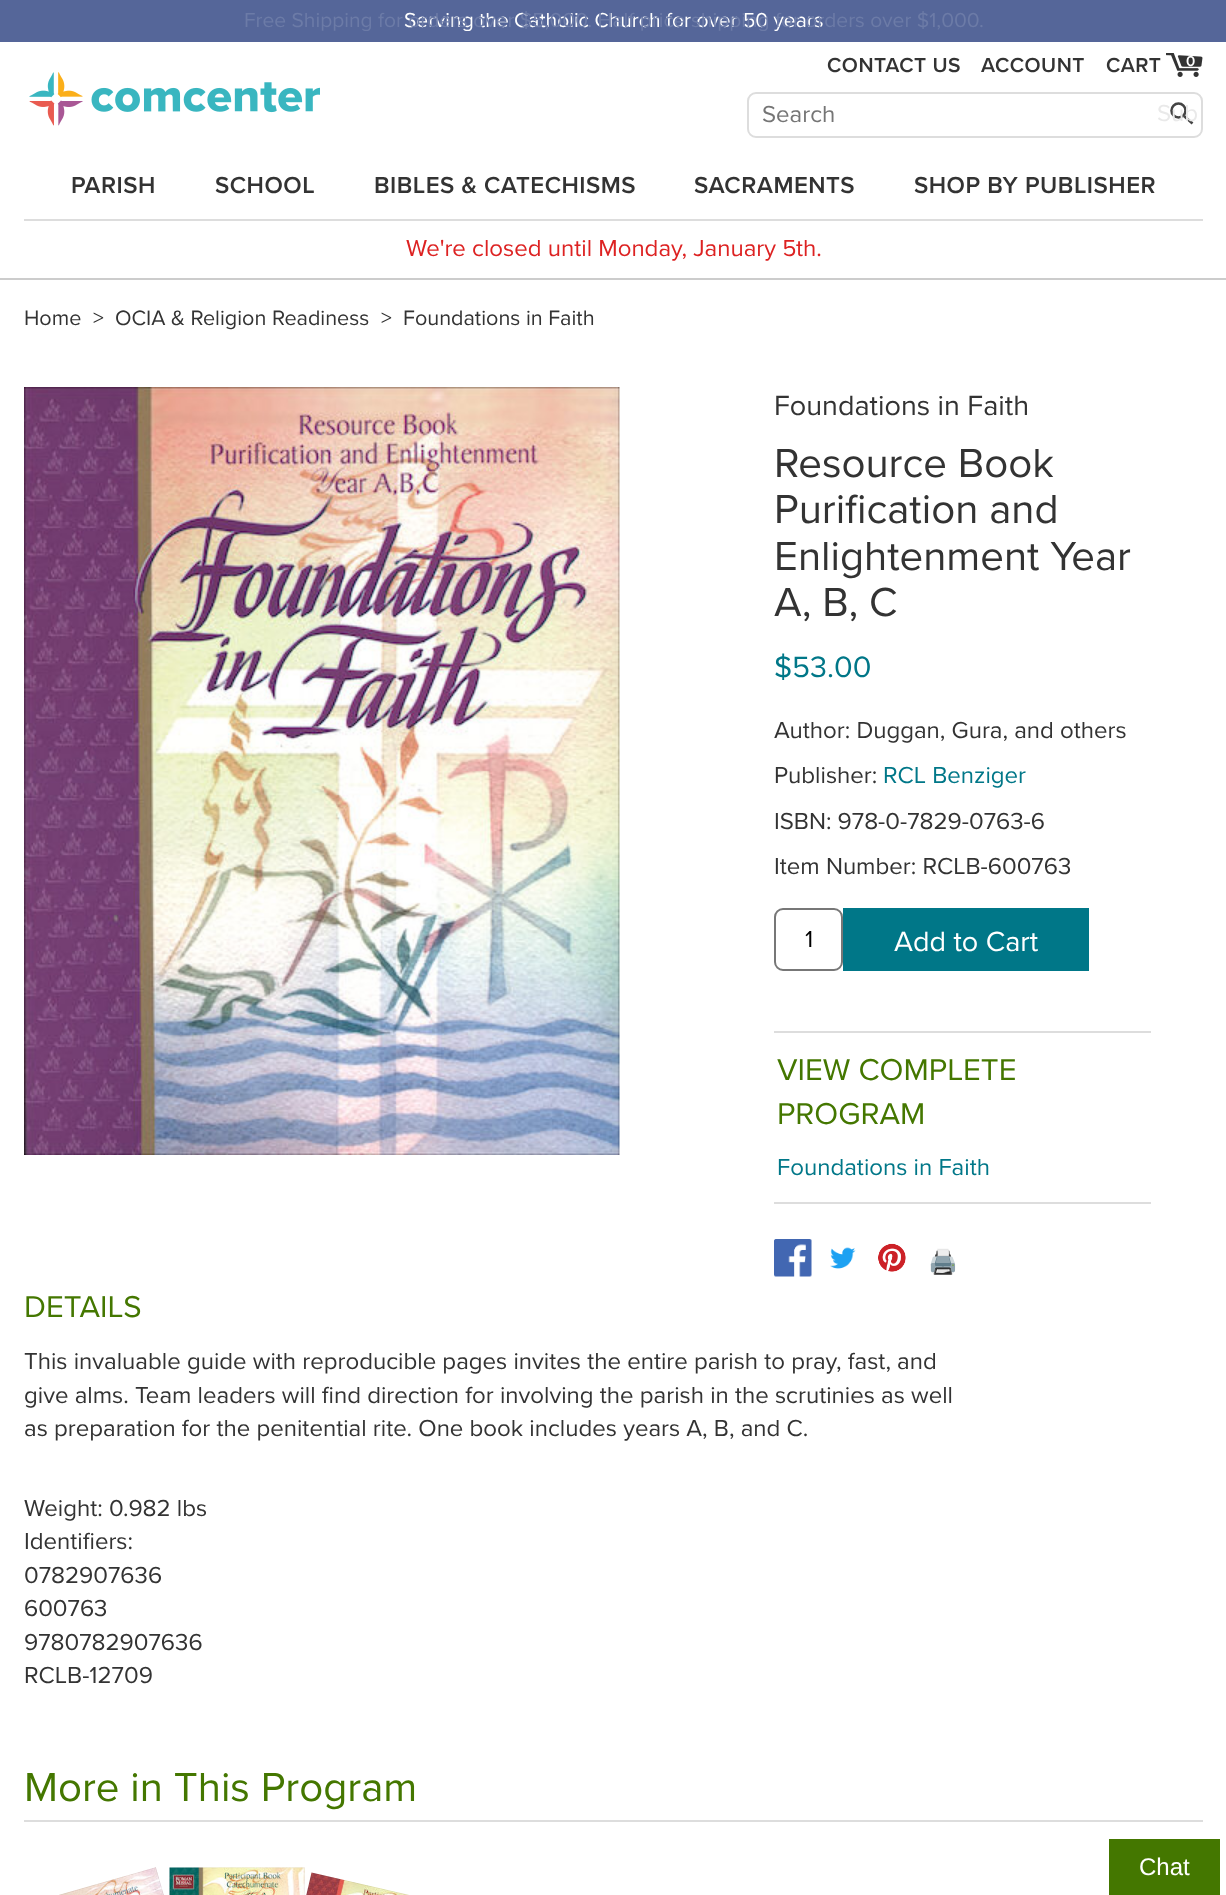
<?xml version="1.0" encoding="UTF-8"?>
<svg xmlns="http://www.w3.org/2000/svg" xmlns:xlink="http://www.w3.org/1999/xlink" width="1226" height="1895">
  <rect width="100%" height="100%" fill="#ffffff" />
  <rect width="1226" height="42" fill="#556699" />
  <image x="29" y="72" width="291" height="54" xlink:href="image1.png" />
  <image x="1166" y="53" width="37" height="24" xlink:href="image2.png" />
  <rect x="748" y="93" width="454" height="44" rx="8" fill="none" stroke="#dddddd" stroke-width="2" />
  <path d="M 1192.5 123.5 l -8.5 -7.5" fill="none" stroke="#444444" stroke-width="2.6" />
  <circle cx="1178.5" cy="110.5" r="7" fill="none" stroke="#444444" stroke-width="2.6" />
  <rect x="24" y="219" width="1179" height="2" fill="#dddddd" />
  <rect y="278" width="1226" height="2" fill="#cccccc" />
  <image x="24" y="387" width="596" height="768" xlink:href="image3.png" />
  <rect x="775" y="909" width="67" height="61" rx="8" fill="none" stroke="#777777" stroke-width="2" />
  <rect x="843" y="908" width="246" height="63" fill="#007788" />
  <rect x="774" y="1031" width="377" height="2" fill="#dddddd" />
  <rect x="774" y="1202" width="377" height="2" fill="#dddddd" />
  <image x="774" y="1239" width="38" height="38" xlink:href="image4.png" />
  <image x="830" y="1247" width="26" height="22" xlink:href="image5.png" />
  <image x="878" y="1243" width="28" height="29" xlink:href="image6.png" />
  <rect x="24" y="1820" width="1179" height="2" fill="#dddddd" />
  <image x="59" y="1867" width="105" height="28" xlink:href="image7.png" />
  <image x="169" y="1867" width="136" height="28" xlink:href="image8.png" />
  <image x="306" y="1872" width="103" height="23" xlink:href="image9.png" />
  <rect x="1109" y="1839" width="111" height="56" fill="#447700" />
  <text x="404" y="27" style="font-family: Proxima Nova; font-size: 21px; fill: #ffffff">Serving the Catholic Church for over 50 years</text>
  <text x="244" y="27" style="font-family: Proxima Nova; font-size: 21px; fill: #6c7ba7">Free Shipping for orders over $5,000. Half price shipping for orders over $1,000.</text>
  <text x="827" y="72" style="font-family: Proxima Nova; font-size: 21px; font-weight: 600; letter-spacing: 0.5px; fill: #333333">CONTACT US</text>
  <text x="981" y="72" style="font-family: Proxima Nova; font-size: 21px; font-weight: 600; letter-spacing: 0.5px; fill: #333333">ACCOUNT</text>
  <text x="1106" y="72" style="font-family: Proxima Nova; font-size: 21px; font-weight: 600; letter-spacing: 0.5px; fill: #333333">CART</text>
  <text x="1186" y="66" style="font-family: Proxima Nova; font-size: 15px; font-weight: 600; letter-spacing: 0.5px; fill: #ffffff">0</text>
  <text x="762" y="122" style="font-family: Proxima Nova; font-size: 24px; fill: #757575">Search</text>
  <text x="1157" y="121" style="font-family: Proxima Nova; font-size: 24px; fill: #e9e9e9">Sub</text>
  <text x="71" y="193" style="font-family: Proxima Nova; font-size: 24px; font-weight: 600; letter-spacing: 0.5px; fill: #333333">PARISH</text>
  <text x="215" y="193" style="font-family: Proxima Nova; font-size: 24px; font-weight: 600; letter-spacing: 0.5px; fill: #333333">SCHOOL</text>
  <text x="374" y="193" style="font-family: Proxima Nova; font-size: 24px; font-weight: 600; letter-spacing: 0.5px; fill: #333333">BIBLES &amp; CATECHISMS</text>
  <text x="694" y="193" style="font-family: Proxima Nova; font-size: 24px; font-weight: 600; letter-spacing: 0.5px; fill: #333333">SACRAMENTS</text>
  <text x="914" y="193" style="font-family: Proxima Nova; font-size: 24px; font-weight: 600; letter-spacing: 0.5px; fill: #333333">SHOP BY PUBLISHER</text>
  <text x="406" y="256" style="font-family: Proxima Nova; font-size: 24px; fill: #dd2222">We're closed until Monday, January 5th.</text>
  <text x="24" y="325" style="font-family: Proxima Nova; font-size: 21.6px; fill: #333333">Home</text>
  <text x="93" y="325" style="font-family: Proxima Nova; font-size: 21.6px; fill: #333333">&gt;</text>
  <text x="115" y="325" style="font-family: Proxima Nova; font-size: 21.6px; fill: #333333">OCIA &amp; Religion Readiness</text>
  <text x="381" y="325" style="font-family: Proxima Nova; font-size: 21.6px; fill: #333333">&gt;</text>
  <text x="403" y="325" style="font-family: Proxima Nova; font-size: 21.6px; fill: #333333">Foundations in Faith</text>
  <text x="774" y="415" style="font-family: Proxima Nova; font-size: 28.75px; fill: #333333">Foundations in Faith</text>
  <text x="774" y="477" style="font-family: Proxima Nova; font-size: 42px; fill: #333333">Resource Book</text>
  <text x="774" y="523" style="font-family: Proxima Nova; font-size: 42px; fill: #333333">Purification and</text>
  <text x="774" y="570" style="font-family: Proxima Nova; font-size: 42px; fill: #333333">Enlightenment Year</text>
  <text x="774" y="616" style="font-family: Proxima Nova; font-size: 42px; fill: #333333">A, B, C</text>
  <text x="774" y="677" style="font-family: Proxima Nova; font-size: 30.5px; fill: #007788">$53.00</text>
  <text x="774" y="738" style="font-family: Proxima Nova; font-size: 24px; fill: #333333">Author: Duggan, Gura, and others</text>
  <text x="774" y="783" style="font-family: Proxima Nova; font-size: 24px; fill: #333333">Publisher:</text>
  <text x="883" y="783" style="font-family: Proxima Nova; font-size: 24px; fill: #007788">RCL Benziger</text>
  <text x="774" y="829" style="font-family: Proxima Nova; font-size: 24px; fill: #333333">ISBN: 978-0-7829-0763-6</text>
  <text x="774" y="874" style="font-family: Proxima Nova; font-size: 24px; fill: #333333">Item Number: RCLB-600763</text>
  <text x="805" y="947" style="font-family: Proxima Nova; font-size: 24px; fill: #000000">1</text>
  <text x="894" y="951" style="font-family: Proxima Nova; font-size: 28.75px; fill: #ffffff">Add to Cart</text>
  <text x="777" y="1080" style="font-family: Proxima Nova; font-size: 31.25px; fill: #447700">VIEW COMPLETE</text>
  <text x="777" y="1124" style="font-family: Proxima Nova; font-size: 31.25px; fill: #447700">PROGRAM</text>
  <text x="777" y="1175" style="font-family: Proxima Nova; font-size: 24px; fill: #007788">Foundations in Faith</text>
  <text x="928" y="1270" style="font-family: Noto Color Emoji; font-size: 24px; fill: #007788">🖨️</text>
  <text x="24" y="1317" style="font-family: Proxima Nova; font-size: 31.25px; fill: #447700">DETAILS</text>
  <text x="24" y="1369" style="font-family: Proxima Nova; font-size: 24px; fill: #333333">This invaluable guide with reproducible pages invites the entire parish to pray, fast, and</text>
  <text x="24" y="1403" style="font-family: Proxima Nova; font-size: 24px; fill: #333333">give alms. Team leaders will find direction for involving the parish in the scrutinies as well</text>
  <text x="24" y="1436" style="font-family: Proxima Nova; font-size: 24px; fill: #333333">as preparation for the penitential rite. One book includes years A, B, and C.</text>
  <text x="24" y="1516" style="font-family: Proxima Nova; font-size: 24px; fill: #333333">Weight: 0.982 lbs</text>
  <text x="24" y="1549" style="font-family: Proxima Nova; font-size: 24px; fill: #333333">Identifiers:</text>
  <text x="24" y="1583" style="font-family: Proxima Nova; font-size: 24px; fill: #333333">0782907636</text>
  <text x="24" y="1616" style="font-family: Proxima Nova; font-size: 24px; fill: #333333">600763</text>
  <text x="24" y="1650" style="font-family: Proxima Nova; font-size: 24px; fill: #333333">9780782907636</text>
  <text x="24" y="1683" style="font-family: Proxima Nova; font-size: 24px; fill: #333333">RCLB-12709</text>
  <text x="24" y="1801" style="font-family: Proxima Nova; font-size: 42px; fill: #447700">More in This Program</text>
  <text x="1139" y="1875" style="font-family: Liberation Sans; font-size: 24px; fill: #ffffff">Chat</text>
</svg>
